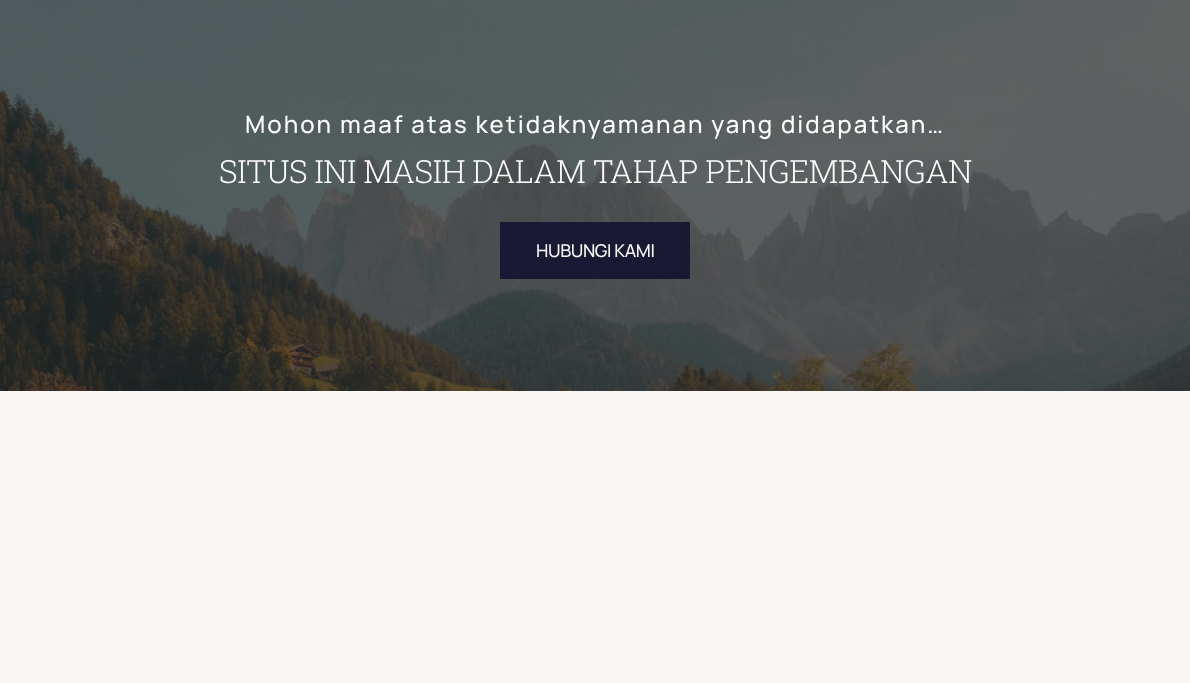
<?xml version="1.0" encoding="UTF-8"?>
<svg xmlns="http://www.w3.org/2000/svg" xmlns:xlink="http://www.w3.org/1999/xlink" width="1190" height="683">
  <rect width="100%" height="100%" fill="#f8f7f5" />
  <image x="0" y="0" width="1190" height="391" xlink:href="image1.png" />
  <rect x="500" y="222" width="190" height="57" fill="#191933" />
  <text x="245" y="133" style="font-family: Manrope; font-size: 24px; font-weight: 500; letter-spacing: 2px; fill: #ffffff">Mohon maaf atas ketidaknyamanan yang didapatkan…</text>
  <text x="219" y="183" style="font-family: Roboto Slab; font-size: 32px; font-weight: 300; letter-spacing: -0.5px; fill: #ffffff">SITUS INI MASIH DALAM TAHAP PENGEMBANGAN</text>
  <text x="536" y="257" style="font-family: Manrope; font-size: 17.75px; font-weight: 500; letter-spacing: -0.4px; fill: #f8f7f5">HUBUNGI KAMI</text>
</svg>
